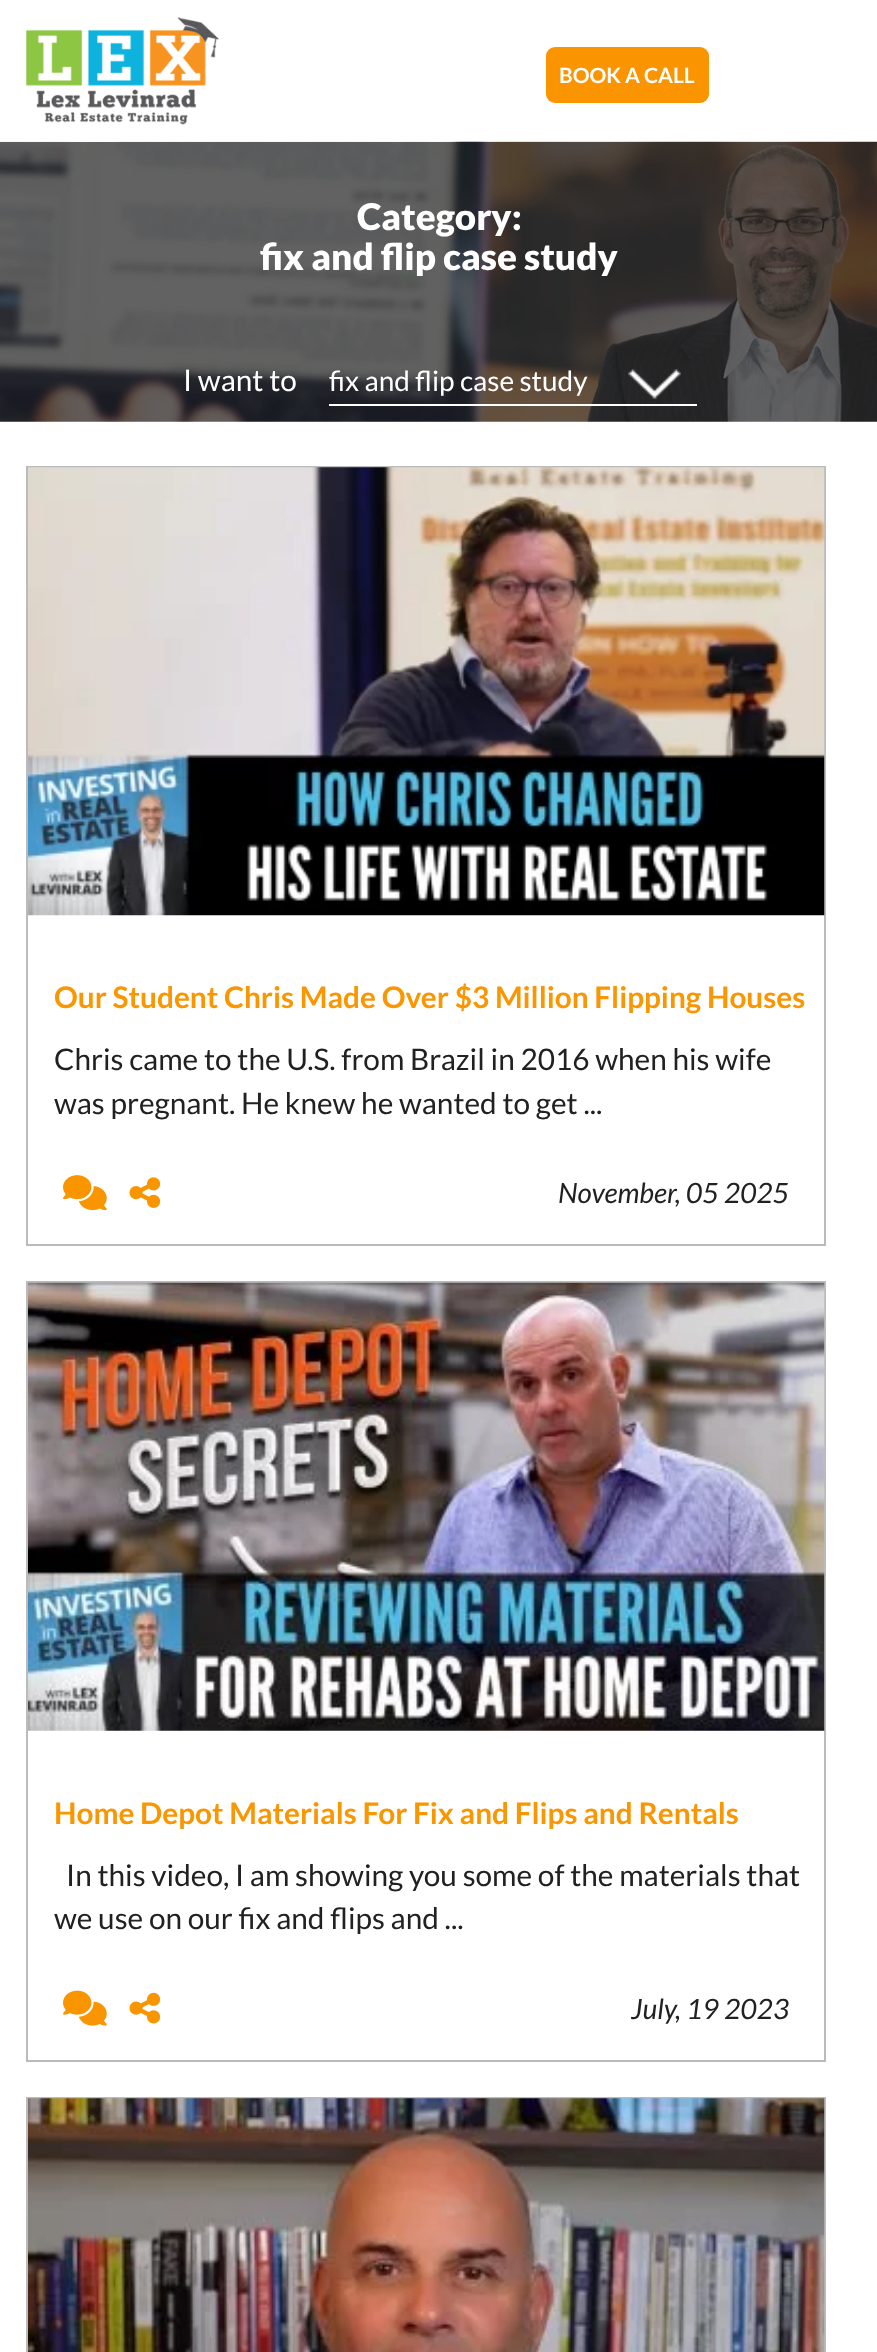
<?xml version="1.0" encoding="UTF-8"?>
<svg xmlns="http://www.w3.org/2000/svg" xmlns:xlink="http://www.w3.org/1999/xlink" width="877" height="2352">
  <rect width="100%" height="100%" fill="#ffffff" />
  <image x="26" y="17" width="193" height="108" xlink:href="image1.png" />
  <rect x="546" y="47" width="163" height="56" rx="9" fill="#fa9400" />
  <image x="0" y="141" width="877" height="281" xlink:href="image2.png" />
  <image x="628" y="369" width="53" height="30" xlink:href="image3.png" />
  <rect x="329" y="404" width="368" height="2" fill="#ffffff" />
  <rect x="27" y="467" width="798" height="778" fill="none" stroke="#bbbbbb" stroke-width="2" />
  <image x="28" y="467" width="797" height="449" xlink:href="image4.png" />
  <image x="63" y="1175" width="44" height="36" xlink:href="image5.png" />
  <image x="129" y="1177" width="32" height="31" xlink:href="image6.png" />
  <rect x="27" y="1282" width="798" height="779" fill="none" stroke="#bbbbbb" stroke-width="2" />
  <image x="28" y="1282" width="797" height="449" xlink:href="image7.png" />
  <image x="63" y="1990" width="44" height="36" xlink:href="image8.png" />
  <image x="129" y="1992" width="32" height="32" xlink:href="image9.png" />
  <rect x="27" y="2098" width="798" height="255" fill="none" stroke="#bbbbbb" stroke-width="2" />
  <image x="28" y="2098" width="797" height="254" xlink:href="image10.png" />
  <text x="559" y="83" style="font-family: Lato; font-size: 21px; font-weight: bold; fill: #ffffff">BOOK A CALL</text>
  <text x="357" y="230" style="font-family: Lato; font-size: 36.75px; font-weight: 900; fill: #ffffff">Category:</text>
  <text x="260" y="270" style="font-family: Lato; font-size: 36.75px; font-weight: 900; fill: #ffffff">fix and flip case study</text>
  <text x="183" y="391" style="font-family: Lato; font-size: 29.75px; fill: #ffffff">I want to</text>
  <text x="329" y="391" style="font-family: Lato; font-size: 28px; fill: #ffffff">fix and flip case study</text>
  <text x="54" y="1008" style="font-family: Lato; font-size: 29.75px; font-weight: bold; fill: #fa9600">Our Student Chris Made Over $3 Million Flipping Houses</text>
  <text x="54" y="1070" style="font-family: Lato; font-size: 29.75px; fill: #212121"> Chris came to the U.S. from Brazil in 2016 when his wife</text>
  <text x="54" y="1114" style="font-family: Lato; font-size: 29.75px; fill: #212121">was pregnant. He knew he wanted to get ...</text>
  <text x="558" y="1203" style="font-family: Lato; font-size: 28px; font-style: italic; fill: #212121">November, 05 2025</text>
  <text x="54" y="1824" style="font-family: Lato; font-size: 29.75px; font-weight: bold; fill: #fa9600">Home Depot Materials For Fix and Flips and Rentals</text>
  <text x="66" y="1886" style="font-family: Lato; font-size: 29.75px; fill: #212121">In this video, I am showing you some of the materials that</text>
  <text x="54" y="1929" style="font-family: Lato; font-size: 29.75px; fill: #212121">we use on our fix and flips and ...</text>
  <text x="631" y="2019" style="font-family: Lato; font-size: 28px; font-style: italic; fill: #212121">July, 19 2023</text>
</svg>
